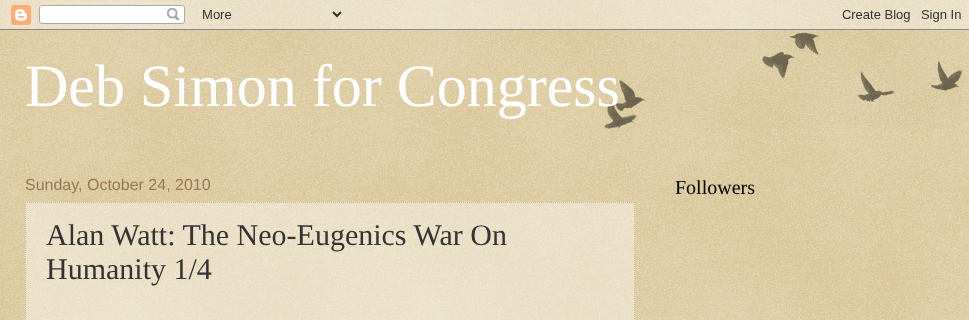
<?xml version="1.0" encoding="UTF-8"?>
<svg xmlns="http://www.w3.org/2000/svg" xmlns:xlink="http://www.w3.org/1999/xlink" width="969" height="320">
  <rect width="100%" height="100%" fill="#c0a154" />
  <image x="0" y="0" width="969" height="320" xlink:href="image1.png" />
  <image x="0" y="0" width="969" height="30" xlink:href="image2.png" />
  <rect x="25" y="202" width="610" height="118" fill="#ffffff" fill-opacity="0.4" />
  <path d="M 25 202.5 h 610" fill="none" stroke="#ccbb99" stroke-dasharray="1 1" />
  <path d="M 634.5 202 v 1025" fill="none" stroke="#ccbb99" stroke-dasharray="1 1" />
  <path d="M 25.5 202 v 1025" fill="none" stroke="#ccbb99" stroke-dasharray="1 1" />
  <image x="604" y="32" width="359" height="97" xlink:href="image3.png" />
  <text x="25" y="106" style="font-family: Liberation Serif; font-size: 60px; fill: #ffffff">Deb Simon for Congress</text>
  <text x="25" y="190" style="font-family: Liberation Sans; font-size: 16px; fill: #997755">Sunday, October 24, 2010</text>
  <text x="46" y="245" style="font-family: Liberation Serif; font-size: 30px; fill: #333333">Alan Watt: The Neo-Eugenics War On</text>
  <text x="46" y="279" style="font-family: Liberation Serif; font-size: 30px; fill: #333333">Humanity 1/4</text>
  <text x="675" y="194" style="font-family: Liberation Serif; font-size: 20px; fill: #000000">Followers</text>
</svg>
